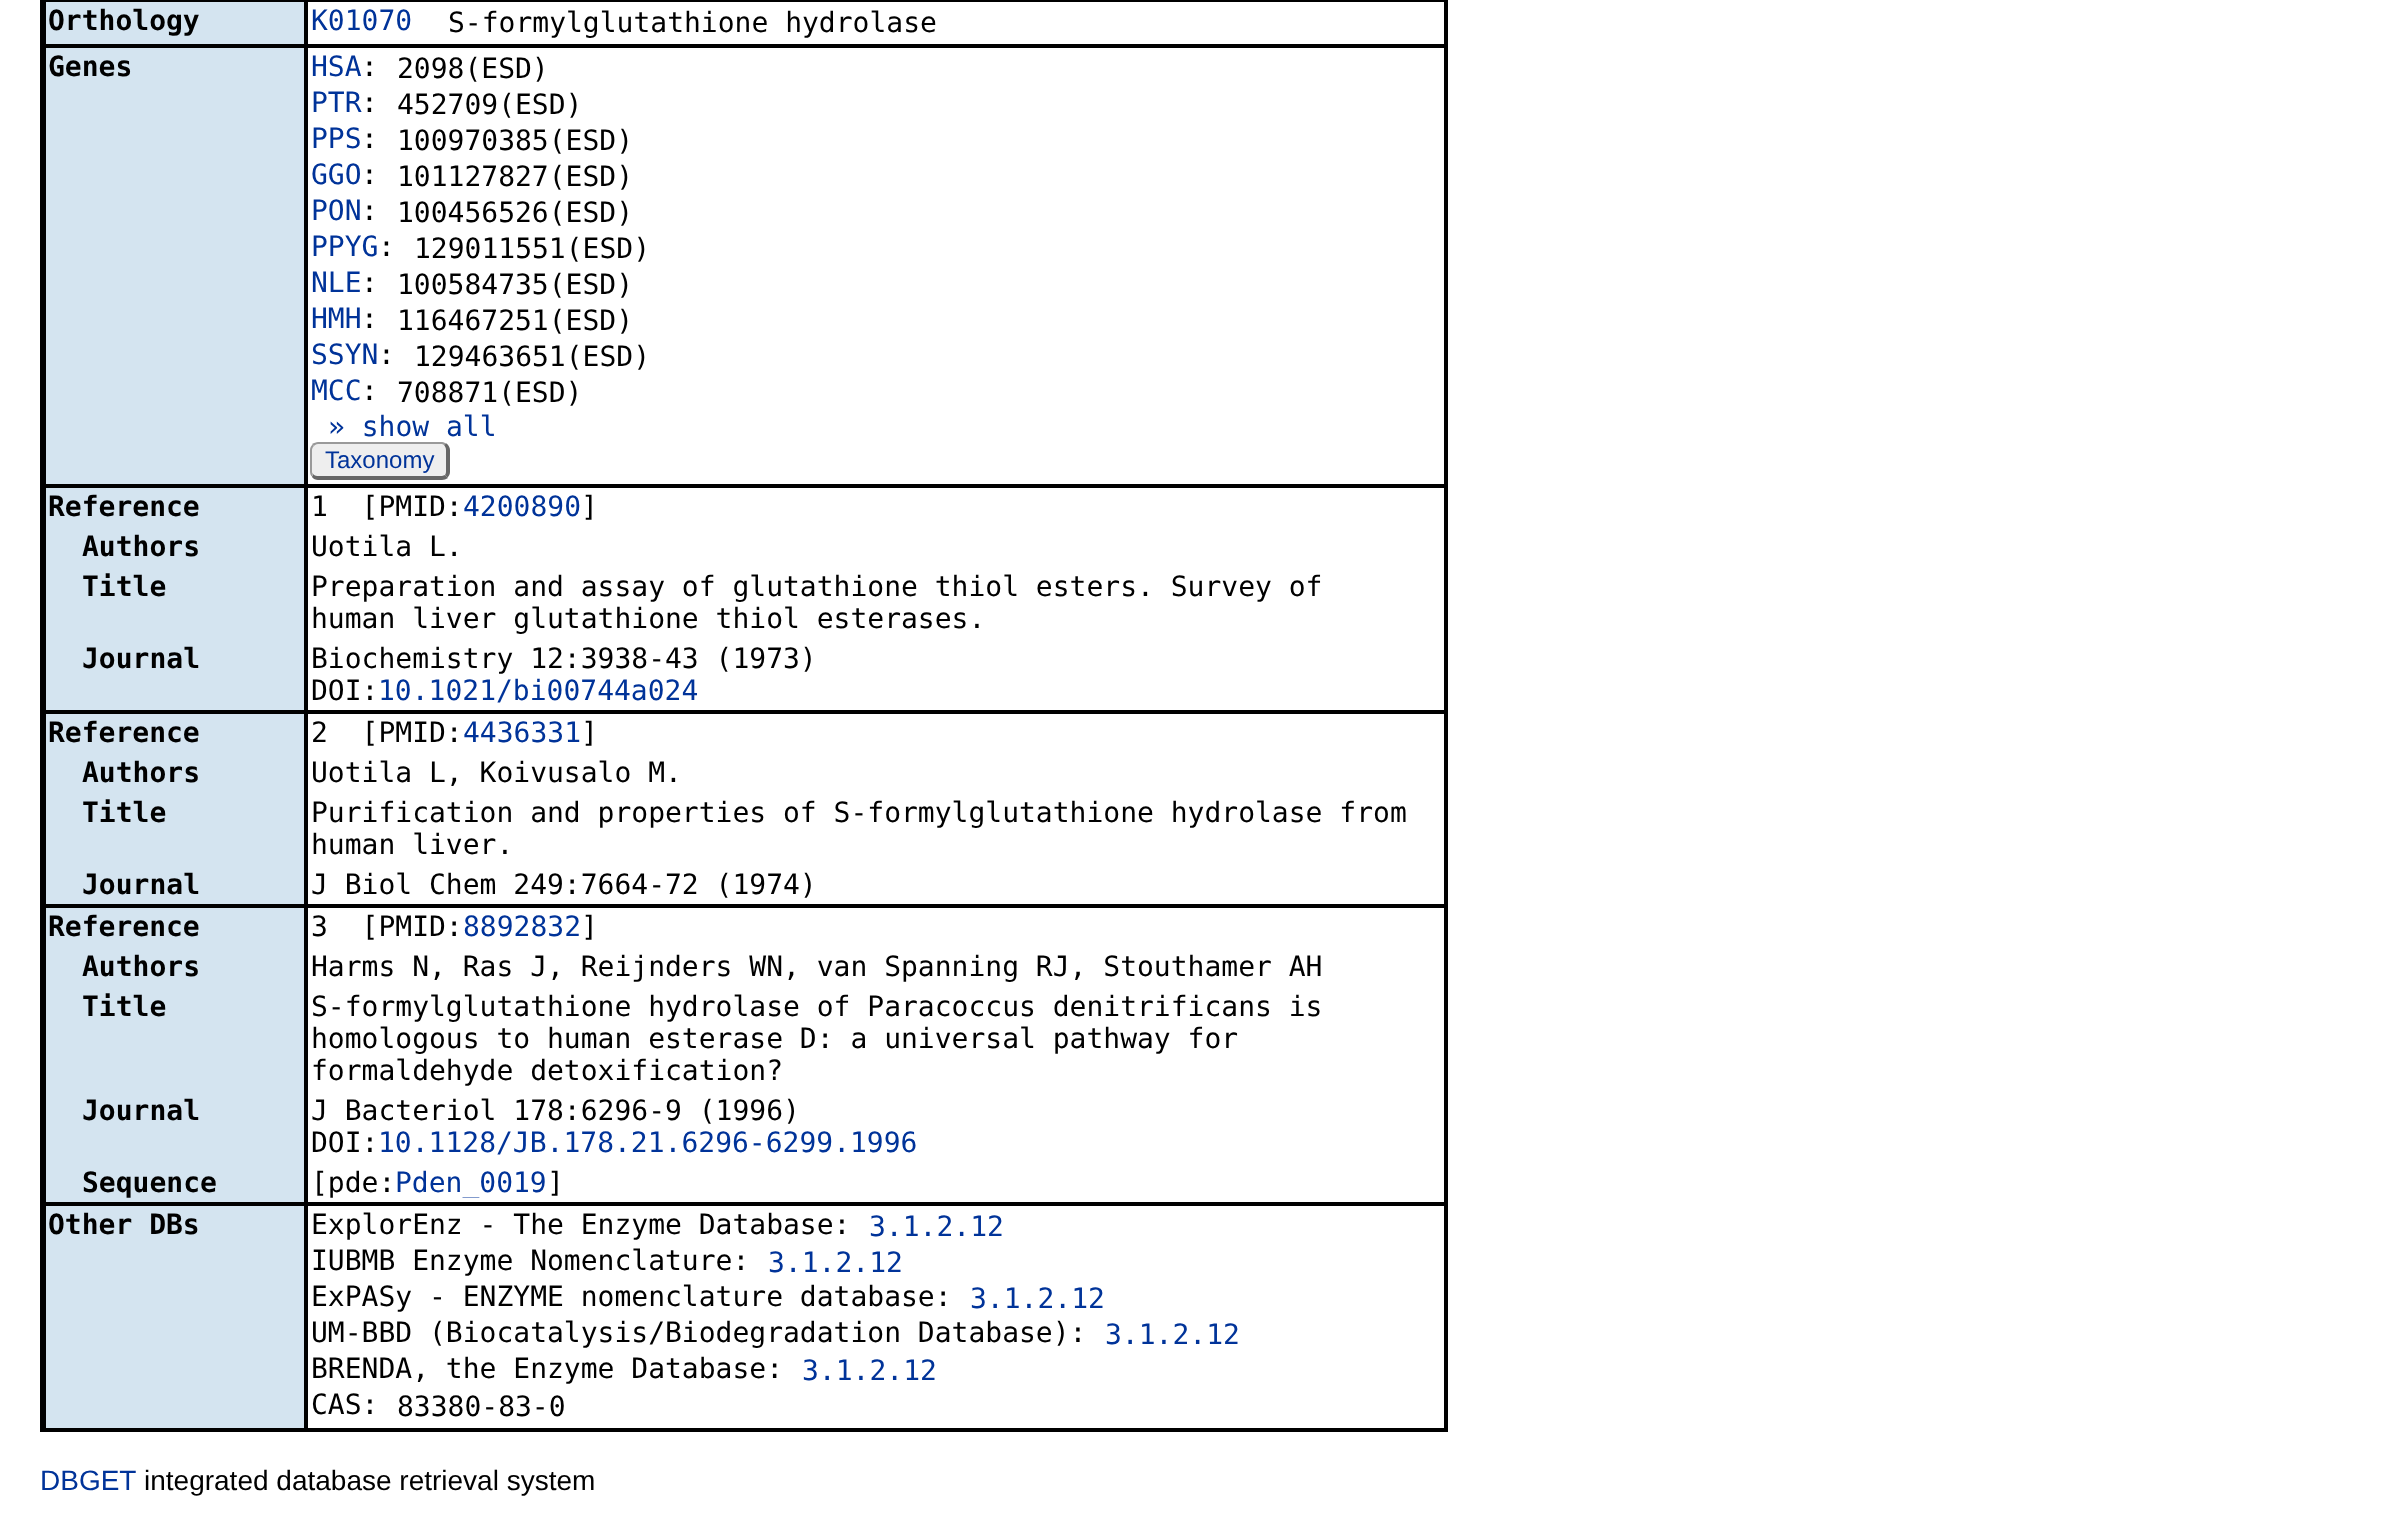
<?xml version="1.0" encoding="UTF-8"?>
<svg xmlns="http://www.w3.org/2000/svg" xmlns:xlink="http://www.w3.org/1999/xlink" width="2406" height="1535">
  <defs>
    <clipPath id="clip1"><rect x="310" y="1166" width="1110" height="32" /></clipPath>
  </defs>
  <rect width="100%" height="100%" fill="#ffffff" />
  <rect x="40" width="1408" height="1432" fill="#000000" />
  <rect x="46" y="2" width="258" height="42" fill="#d4e4f0" />
  <rect x="308" y="2" width="1136" height="42" fill="#ffffff" />
  <rect x="46" y="48" width="258" height="436" fill="#d4e4f0" />
  <rect x="308" y="48" width="1136" height="436" fill="#ffffff" />
  <path d="M 318 444 h 124 c 2 0 4 3 4 6 v 22 c 0 2 -2 4 -4 4 h -124 c -3 0 -6 -2 -6 -4 v -22 c 0 -3 3 -6 6 -6 z" fill="#eeeeee" />
  <path d="M 318 442 c -2 0 -4 1 -6 2 l 2 2 c 1 -1 2 -2 4 -2 h 124 l 2 1 l 3 -1 c -2 -1 -3 -2 -5 -2 z" fill="#999999" />
  <path d="M 450 472 v -22 c 0 -2.5 -1.5 -5 -3.5 -6.5 l -2.5 1.5 c 1 1 2 3 2 5 v 22 c 0 1 -0.5 2 -1 3 l 2.5 2.5 c 1.5 -1.5 2.5 -3.5 2.5 -5.5 z" fill="#666666" />
  <path d="M 318 480 h 124 c 2 0 4 -1 6 -2 l -3 -3 l -3 1 h -125 c -1 0 -3 -1 -4 -2 l -1 3 c 1 2 4 3 6 3 z" fill="#666666" />
  <path d="M 310 450 v 22 c 0 1.5 0.5 3 1.5 4.5 l 1.5 -2.5 c -0.5 -0.5 -1 -1.5 -1 -2 v -22 c 0 -1.5 1 -3 2 -4 l -1.5 -1.5 c -1.5 1.5 -2.5 3.5 -2.5 5.5 z" fill="#999999" />
  <rect x="46" y="488" width="258" height="222" fill="#d4e4f0" />
  <rect x="308" y="488" width="1136" height="222" fill="#ffffff" />
  <rect x="46" y="714" width="258" height="190" fill="#d4e4f0" />
  <rect x="308" y="714" width="1136" height="190" fill="#ffffff" />
  <rect x="46" y="908" width="258" height="294" fill="#d4e4f0" />
  <rect x="308" y="908" width="1136" height="294" fill="#ffffff" />
  <rect x="46" y="1206" width="258" height="222" fill="#d4e4f0" />
  <rect x="308" y="1206" width="1136" height="222" fill="#ffffff" />
  <text x="48" y="30" style="font-family: DejaVu Sans Mono; font-size: 28px; font-weight: bold; fill: #000000">Orthology</text>
  <text x="311" y="30" style="font-family: DejaVu Sans Mono; font-size: 28px; fill: #003399">K01070</text>
  <text x="448" y="32" style="font-family: DejaVu Sans Mono; font-size: 28px; fill: #000000">S-formylglutathione hydrolase</text>
  <text x="48" y="76" style="font-family: DejaVu Sans Mono; font-size: 28px; font-weight: bold; fill: #000000">Genes</text>
  <text x="311" y="76" style="font-family: DejaVu Sans Mono; font-size: 28px; fill: #003399">HSA</text>
  <text x="361" y="76" style="font-family: DejaVu Sans Mono; font-size: 28px; fill: #000000">:</text>
  <text x="397" y="78" style="font-family: DejaVu Sans Mono; font-size: 28px; fill: #000000">2098(ESD)</text>
  <text x="311" y="112" style="font-family: DejaVu Sans Mono; font-size: 28px; fill: #003399">PTR</text>
  <text x="361" y="112" style="font-family: DejaVu Sans Mono; font-size: 28px; fill: #000000">:</text>
  <text x="397" y="114" style="font-family: DejaVu Sans Mono; font-size: 28px; fill: #000000">452709(ESD)</text>
  <text x="311" y="148" style="font-family: DejaVu Sans Mono; font-size: 28px; fill: #003399">PPS</text>
  <text x="361" y="148" style="font-family: DejaVu Sans Mono; font-size: 28px; fill: #000000">:</text>
  <text x="397" y="150" style="font-family: DejaVu Sans Mono; font-size: 28px; fill: #000000">100970385(ESD)</text>
  <text x="311" y="184" style="font-family: DejaVu Sans Mono; font-size: 28px; fill: #003399">GGO</text>
  <text x="361" y="184" style="font-family: DejaVu Sans Mono; font-size: 28px; fill: #000000">:</text>
  <text x="397" y="186" style="font-family: DejaVu Sans Mono; font-size: 28px; fill: #000000">101127827(ESD)</text>
  <text x="311" y="220" style="font-family: DejaVu Sans Mono; font-size: 28px; fill: #003399">PON</text>
  <text x="361" y="220" style="font-family: DejaVu Sans Mono; font-size: 28px; fill: #000000">:</text>
  <text x="397" y="222" style="font-family: DejaVu Sans Mono; font-size: 28px; fill: #000000">100456526(ESD)</text>
  <text x="311" y="256" style="font-family: DejaVu Sans Mono; font-size: 28px; fill: #003399">PPYG</text>
  <text x="378" y="256" style="font-family: DejaVu Sans Mono; font-size: 28px; fill: #000000">:</text>
  <text x="414" y="258" style="font-family: DejaVu Sans Mono; font-size: 28px; fill: #000000">129011551(ESD)</text>
  <text x="311" y="292" style="font-family: DejaVu Sans Mono; font-size: 28px; fill: #003399">NLE</text>
  <text x="361" y="292" style="font-family: DejaVu Sans Mono; font-size: 28px; fill: #000000">:</text>
  <text x="397" y="294" style="font-family: DejaVu Sans Mono; font-size: 28px; fill: #000000">100584735(ESD)</text>
  <text x="311" y="328" style="font-family: DejaVu Sans Mono; font-size: 28px; fill: #003399">HMH</text>
  <text x="361" y="328" style="font-family: DejaVu Sans Mono; font-size: 28px; fill: #000000">:</text>
  <text x="397" y="330" style="font-family: DejaVu Sans Mono; font-size: 28px; fill: #000000">116467251(ESD)</text>
  <text x="311" y="364" style="font-family: DejaVu Sans Mono; font-size: 28px; fill: #003399">SSYN</text>
  <text x="378" y="364" style="font-family: DejaVu Sans Mono; font-size: 28px; fill: #000000">:</text>
  <text x="414" y="366" style="font-family: DejaVu Sans Mono; font-size: 28px; fill: #000000">129463651(ESD)</text>
  <text x="311" y="400" style="font-family: DejaVu Sans Mono; font-size: 28px; fill: #003399">MCC</text>
  <text x="361" y="400" style="font-family: DejaVu Sans Mono; font-size: 28px; fill: #000000">:</text>
  <text x="397" y="402" style="font-family: DejaVu Sans Mono; font-size: 28px; fill: #000000">708871(ESD)</text>
  <text x="328" y="436" style="font-family: DejaVu Sans Mono; font-size: 28px; fill: #003399">» show all</text>
  <text x="325" y="468" style="font-family: Liberation Sans; font-size: 24px; fill: #003399">Taxonomy</text>
  <text x="48" y="516" style="font-family: DejaVu Sans Mono; font-size: 28px; font-weight: bold; fill: #000000">Reference</text>
  <text x="311" y="516" style="font-family: DejaVu Sans Mono; font-size: 28px; fill: #000000" xml:space="preserve">1  [PMID:</text>
  <text x="463" y="516" style="font-family: DejaVu Sans Mono; font-size: 28px; fill: #003399">4200890</text>
  <text x="581" y="516" style="font-family: DejaVu Sans Mono; font-size: 28px; fill: #000000">]</text>
  <text x="82" y="556" style="font-family: DejaVu Sans Mono; font-size: 28px; font-weight: bold; fill: #000000">Authors</text>
  <text x="311" y="556" style="font-family: DejaVu Sans Mono; font-size: 28px; fill: #000000">Uotila L.</text>
  <text x="82" y="596" style="font-family: DejaVu Sans Mono; font-size: 28px; font-weight: bold; fill: #000000">Title</text>
  <text x="311" y="596" style="font-family: DejaVu Sans Mono; font-size: 28px; fill: #000000">Preparation and assay of glutathione thiol esters. Survey of</text>
  <text x="311" y="628" style="font-family: DejaVu Sans Mono; font-size: 28px; fill: #000000">human liver glutathione thiol esterases.</text>
  <text x="82" y="668" style="font-family: DejaVu Sans Mono; font-size: 28px; font-weight: bold; fill: #000000">Journal</text>
  <text x="311" y="668" style="font-family: DejaVu Sans Mono; font-size: 28px; fill: #000000">Biochemistry 12:3938-43 (1973)</text>
  <text x="311" y="700" style="font-family: DejaVu Sans Mono; font-size: 28px; fill: #000000">DOI:</text>
  <text x="378" y="700" style="font-family: DejaVu Sans Mono; font-size: 28px; fill: #003399">10.1021/bi00744a024</text>
  <text x="48" y="742" style="font-family: DejaVu Sans Mono; font-size: 28px; font-weight: bold; fill: #000000">Reference</text>
  <text x="311" y="742" style="font-family: DejaVu Sans Mono; font-size: 28px; fill: #000000" xml:space="preserve">2  [PMID:</text>
  <text x="463" y="742" style="font-family: DejaVu Sans Mono; font-size: 28px; fill: #003399">4436331</text>
  <text x="581" y="742" style="font-family: DejaVu Sans Mono; font-size: 28px; fill: #000000">]</text>
  <text x="82" y="782" style="font-family: DejaVu Sans Mono; font-size: 28px; font-weight: bold; fill: #000000">Authors</text>
  <text x="311" y="782" style="font-family: DejaVu Sans Mono; font-size: 28px; fill: #000000">Uotila L, Koivusalo M.</text>
  <text x="82" y="822" style="font-family: DejaVu Sans Mono; font-size: 28px; font-weight: bold; fill: #000000">Title</text>
  <text x="311" y="822" style="font-family: DejaVu Sans Mono; font-size: 28px; fill: #000000">Purification and properties of S-formylglutathione hydrolase from</text>
  <text x="311" y="854" style="font-family: DejaVu Sans Mono; font-size: 28px; fill: #000000">human liver.</text>
  <text x="82" y="894" style="font-family: DejaVu Sans Mono; font-size: 28px; font-weight: bold; fill: #000000">Journal</text>
  <text x="311" y="894" style="font-family: DejaVu Sans Mono; font-size: 28px; fill: #000000">J Biol Chem 249:7664-72 (1974)</text>
  <text x="48" y="936" style="font-family: DejaVu Sans Mono; font-size: 28px; font-weight: bold; fill: #000000">Reference</text>
  <text x="311" y="936" style="font-family: DejaVu Sans Mono; font-size: 28px; fill: #000000" xml:space="preserve">3  [PMID:</text>
  <text x="463" y="936" style="font-family: DejaVu Sans Mono; font-size: 28px; fill: #003399">8892832</text>
  <text x="581" y="936" style="font-family: DejaVu Sans Mono; font-size: 28px; fill: #000000">]</text>
  <text x="82" y="976" style="font-family: DejaVu Sans Mono; font-size: 28px; font-weight: bold; fill: #000000">Authors</text>
  <text x="311" y="976" style="font-family: DejaVu Sans Mono; font-size: 28px; fill: #000000">Harms N, Ras J, Reijnders WN, van Spanning RJ, Stouthamer AH</text>
  <text x="82" y="1016" style="font-family: DejaVu Sans Mono; font-size: 28px; font-weight: bold; fill: #000000">Title</text>
  <text x="311" y="1016" style="font-family: DejaVu Sans Mono; font-size: 28px; fill: #000000">S-formylglutathione hydrolase of Paracoccus denitrificans is</text>
  <text x="311" y="1048" style="font-family: DejaVu Sans Mono; font-size: 28px; fill: #000000">homologous to human esterase D: a universal pathway for</text>
  <text x="311" y="1080" style="font-family: DejaVu Sans Mono; font-size: 28px; fill: #000000">formaldehyde detoxification?</text>
  <text x="82" y="1120" style="font-family: DejaVu Sans Mono; font-size: 28px; font-weight: bold; fill: #000000">Journal</text>
  <text x="311" y="1120" style="font-family: DejaVu Sans Mono; font-size: 28px; fill: #000000">J Bacteriol 178:6296-9 (1996)</text>
  <text x="311" y="1152" style="font-family: DejaVu Sans Mono; font-size: 28px; fill: #000000">DOI:</text>
  <text x="378" y="1152" style="font-family: DejaVu Sans Mono; font-size: 28px; fill: #003399">10.1128/JB.178.21.6296-6299.1996</text>
  <text x="82" y="1192" style="font-family: DejaVu Sans Mono; font-size: 28px; font-weight: bold; fill: #000000">Sequence</text>
  <text x="311" y="1192" style="font-family: DejaVu Sans Mono; font-size: 28px; fill: #000000">[pde:</text>
  <g clip-path="url(#clip1)">
    <text x="395" y="1192" style="font-family: DejaVu Sans Mono; font-size: 28px; fill: #003399">Pden_0019</text>
  </g>
  <text x="547" y="1192" style="font-family: DejaVu Sans Mono; font-size: 28px; fill: #000000">]</text>
  <text x="48" y="1234" style="font-family: DejaVu Sans Mono; font-size: 28px; font-weight: bold; fill: #000000">Other DBs</text>
  <text x="311" y="1234" style="font-family: DejaVu Sans Mono; font-size: 28px; fill: #000000">ExplorEnz - The Enzyme Database:</text>
  <text x="869" y="1236" style="font-family: DejaVu Sans Mono; font-size: 28px; fill: #003399">3.1.2.12</text>
  <text x="311" y="1270" style="font-family: DejaVu Sans Mono; font-size: 28px; fill: #000000">IUBMB Enzyme Nomenclature:</text>
  <text x="768" y="1272" style="font-family: DejaVu Sans Mono; font-size: 28px; fill: #003399">3.1.2.12</text>
  <text x="311" y="1306" style="font-family: DejaVu Sans Mono; font-size: 28px; fill: #000000">ExPASy - ENZYME nomenclature database:</text>
  <text x="970" y="1308" style="font-family: DejaVu Sans Mono; font-size: 28px; fill: #003399">3.1.2.12</text>
  <text x="311" y="1342" style="font-family: DejaVu Sans Mono; font-size: 28px; fill: #000000">UM-BBD (Biocatalysis/Biodegradation Database):</text>
  <text x="1105" y="1344" style="font-family: DejaVu Sans Mono; font-size: 28px; fill: #003399">3.1.2.12</text>
  <text x="311" y="1378" style="font-family: DejaVu Sans Mono; font-size: 28px; fill: #000000">BRENDA, the Enzyme Database:</text>
  <text x="802" y="1380" style="font-family: DejaVu Sans Mono; font-size: 28px; fill: #003399">3.1.2.12</text>
  <text x="311" y="1414" style="font-family: DejaVu Sans Mono; font-size: 28px; fill: #000000">CAS:</text>
  <text x="397" y="1416" style="font-family: DejaVu Sans Mono; font-size: 28px; fill: #000000">83380-83-0</text>
  <text x="40" y="1490" style="font-family: Liberation Sans; font-size: 28px; fill: #003399">DBGET</text>
  <text x="144" y="1490" style="font-family: Liberation Sans; font-size: 28px; fill: #000000">integrated database retrieval system</text>
</svg>
